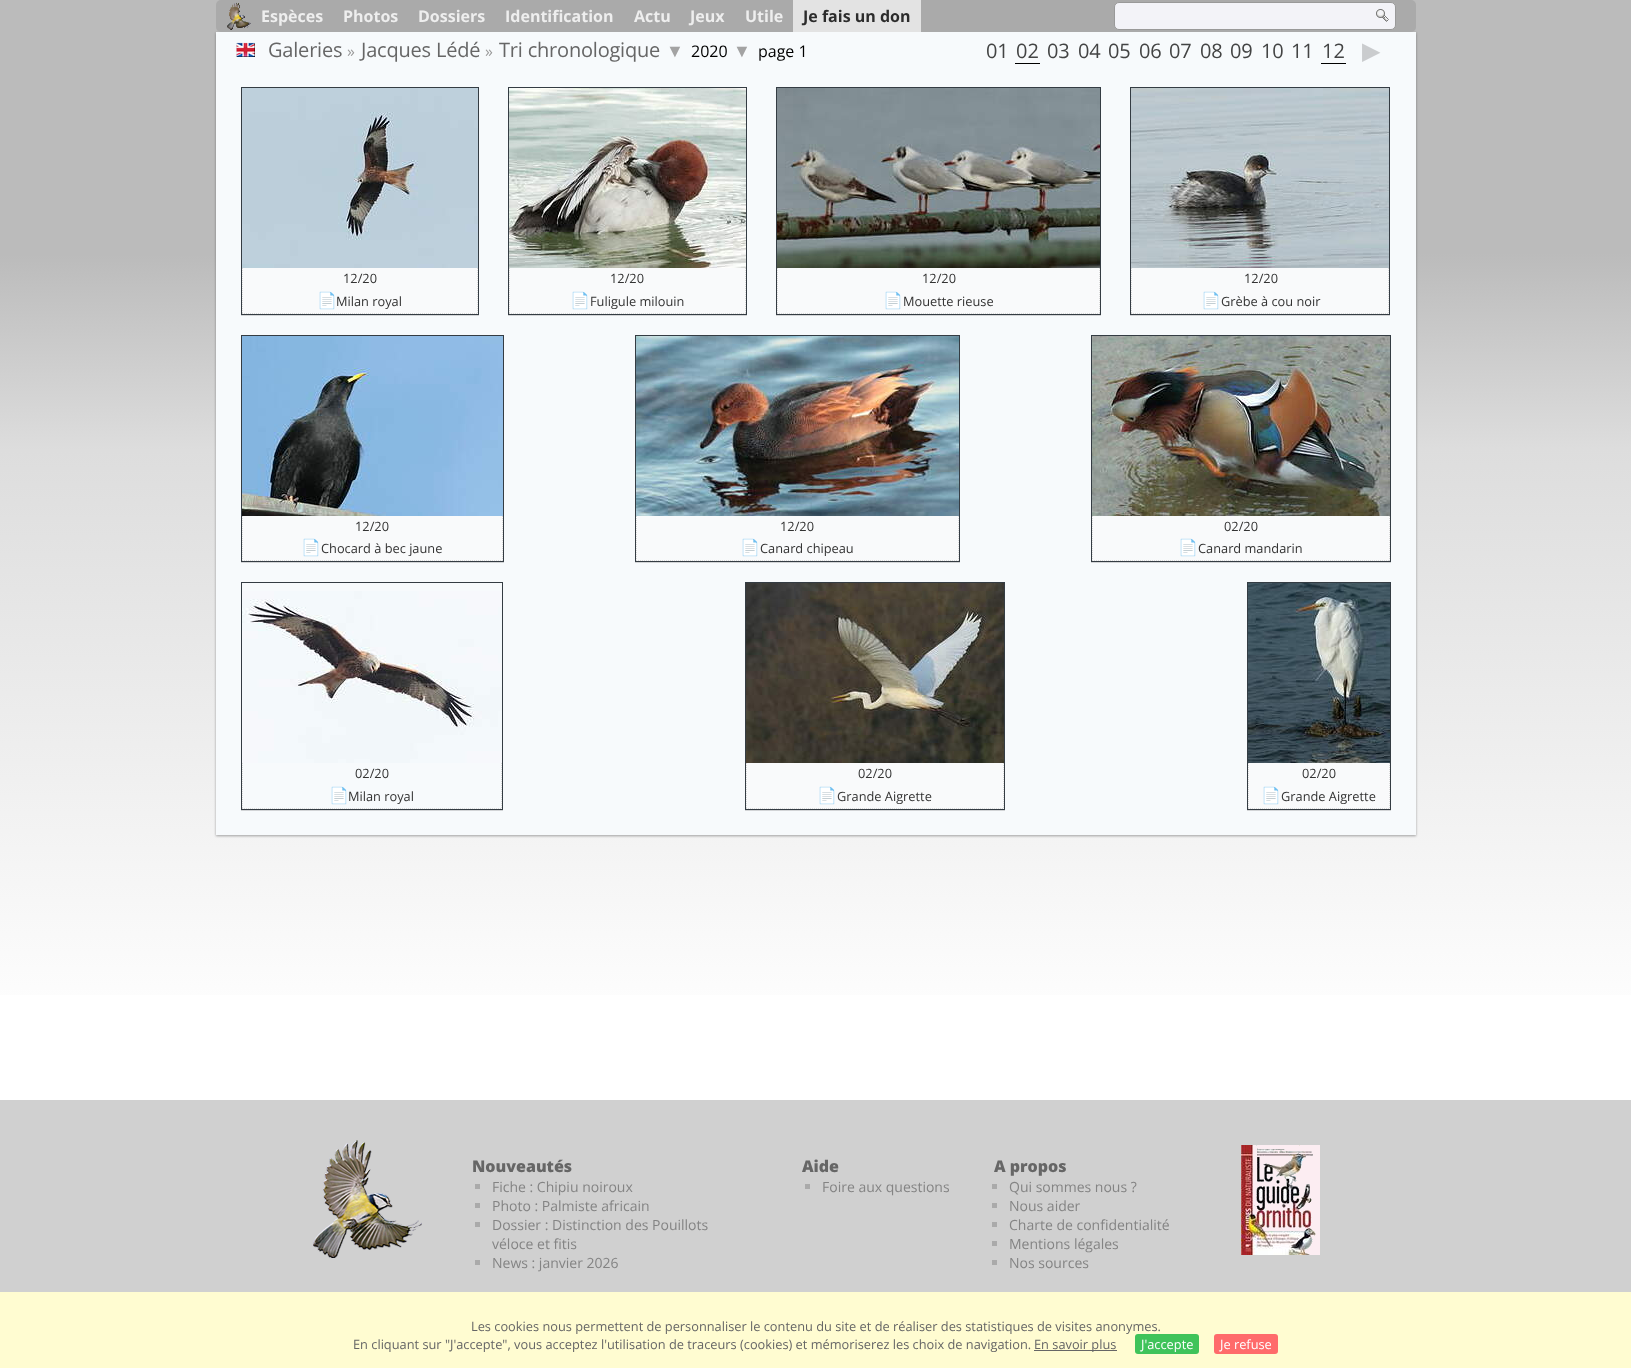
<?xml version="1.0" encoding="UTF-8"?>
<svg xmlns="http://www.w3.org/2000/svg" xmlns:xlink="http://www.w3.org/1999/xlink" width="1631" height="1368">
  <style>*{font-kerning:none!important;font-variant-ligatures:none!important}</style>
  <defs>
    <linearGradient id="g1" gradientUnits="userSpaceOnUse" x1="815" y1="0" x2="816" y2="1153"><stop offset="0" stop-color="#bbbbbb" /><stop offset="0.22" stop-color="#bbbbbb" /><stop offset="0.39" stop-color="#dddddd" /><stop offset="0.9" stop-color="#ffffff" /><stop offset="1" stop-color="#ffffff" /></linearGradient>
    <clipPath id="clip1"><rect x="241" y="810" width="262" height="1" /></clipPath>
  </defs>
  <rect width="100%" height="100%" fill="#ffffff" />
  <rect width="1631" height="995" fill="url(#g1)" />
  <rect x="216" y="33" width="1200" height="803" fill="#000000" fill-opacity="0.24" filter="blur(1px)" />
  <rect x="216" y="33" width="1200" height="803" fill="#000000" fill-opacity="0.12" filter="blur(1.5px)" />
  <rect x="216" width="1200" height="32" rx="5" fill="#aaaaaa" />
  <image x="227" y="2" width="24" height="28" xlink:href="image1.png" />
  <rect x="793" width="128" height="32" fill="#e3e3e3" />
  <rect x="1114.5" y="2.5" width="281" height="27" rx="4.5" fill="#f3f3f8" stroke="#999999" />
  <image x="1376" y="9" width="13" height="13" xlink:href="image2.png" />
  <rect x="216" y="32" width="1200" height="803" fill="#f7fafc" />
  <image x="236" y="42" width="19" height="15" xlink:href="image3.png" />
  <rect x="1015" y="63" width="25" height="1" fill="#000000" />
  <rect x="1321" y="63" width="25" height="1" fill="#000000" />
  <rect x="241" y="88" width="238" height="228" fill="#000000" fill-opacity="0.15" filter="blur(0.5px)" />
  <rect x="241.5" y="87.5" width="237" height="227" fill="none" stroke="#343c43" />
  <image x="242" y="88" width="236" height="180" xlink:href="image4.png" />
  <rect x="242" y="268" width="236" height="46" fill="#f9fafb" />
  <path d="M 477.5 268 v 46" fill="none" stroke="#dadada" stroke-dasharray="1 1" />
  <path d="M 242 313.5 h 236" fill="none" stroke="#dadada" stroke-dasharray="1 1" />
  <path d="M 242.5 268 v 46" fill="none" stroke="#dadada" stroke-dasharray="1 1" />
  <rect x="508" y="88" width="239" height="228" fill="#000000" fill-opacity="0.15" filter="blur(0.5px)" />
  <rect x="508.5" y="87.5" width="238" height="227" fill="none" stroke="#343c43" />
  <image x="509" y="88" width="237" height="180" xlink:href="image5.png" />
  <rect x="509" y="268" width="237" height="46" fill="#f9fafb" />
  <path d="M 745.5 268 v 46" fill="none" stroke="#dadada" stroke-dasharray="1 1" />
  <path d="M 509 313.5 h 237" fill="none" stroke="#dadada" stroke-dasharray="1 1" />
  <path d="M 509.5 268 v 46" fill="none" stroke="#dadada" stroke-dasharray="1 1" />
  <rect x="776" y="88" width="325" height="228" fill="#000000" fill-opacity="0.15" filter="blur(0.5px)" />
  <rect x="776.5" y="87.5" width="324" height="227" fill="none" stroke="#343c43" />
  <image x="777" y="88" width="323" height="180" xlink:href="image6.png" />
  <rect x="777" y="268" width="323" height="46" fill="#f9fafb" />
  <path d="M 1099.5 268 v 46" fill="none" stroke="#dadada" stroke-dasharray="1 1" />
  <path d="M 777 313.5 h 323" fill="none" stroke="#dadada" stroke-dasharray="1 1" />
  <path d="M 777.5 268 v 46" fill="none" stroke="#dadada" stroke-dasharray="1 1" />
  <rect x="1130" y="88" width="260" height="228" fill="#000000" fill-opacity="0.15" filter="blur(0.5px)" />
  <rect x="1130.5" y="87.5" width="259" height="227" fill="none" stroke="#343c43" />
  <image x="1131" y="88" width="258" height="180" xlink:href="image7.png" />
  <rect x="1131" y="268" width="258" height="46" fill="#f9fafb" />
  <path d="M 1388.5 268 v 46" fill="none" stroke="#dadada" stroke-dasharray="1 1" />
  <path d="M 1131 313.5 h 258" fill="none" stroke="#dadada" stroke-dasharray="1 1" />
  <path d="M 1131.5 268 v 46" fill="none" stroke="#dadada" stroke-dasharray="1 1" />
  <rect x="241" y="336" width="263" height="227" fill="#000000" fill-opacity="0.15" filter="blur(0.5px)" />
  <rect x="241.5" y="335.5" width="262" height="226" fill="none" stroke="#343c43" />
  <image x="242" y="336" width="261" height="180" xlink:href="image8.png" />
  <rect x="242" y="516" width="261" height="45" fill="#f9fafb" />
  <path d="M 502.5 516 v 45" fill="none" stroke="#dadada" stroke-dasharray="1 1" />
  <path d="M 242 560.5 h 261" fill="none" stroke="#dadada" stroke-dasharray="1 1" />
  <path d="M 242.5 516 v 45" fill="none" stroke="#dadada" stroke-dasharray="1 1" />
  <rect x="635" y="336" width="325" height="227" fill="#000000" fill-opacity="0.15" filter="blur(0.5px)" />
  <rect x="635.5" y="335.5" width="324" height="226" fill="none" stroke="#343c43" />
  <image x="636" y="336" width="323" height="180" xlink:href="image9.png" />
  <rect x="636" y="516" width="323" height="45" fill="#f9fafb" />
  <path d="M 958.5 516 v 45" fill="none" stroke="#dadada" stroke-dasharray="1 1" />
  <path d="M 636 560.5 h 323" fill="none" stroke="#dadada" stroke-dasharray="1 1" />
  <path d="M 636.5 516 v 45" fill="none" stroke="#dadada" stroke-dasharray="1 1" />
  <rect x="1091" y="336" width="300" height="227" fill="#000000" fill-opacity="0.15" filter="blur(0.5px)" />
  <rect x="1091.5" y="335.5" width="299" height="226" fill="none" stroke="#343c43" />
  <image x="1092" y="336" width="298" height="180" xlink:href="image10.png" />
  <rect x="1092" y="516" width="298" height="45" fill="#f9fafb" />
  <path d="M 1389.5 516 v 45" fill="none" stroke="#dadada" stroke-dasharray="1 1" />
  <path d="M 1092 560.5 h 298" fill="none" stroke="#dadada" stroke-dasharray="1 1" />
  <path d="M 1092.5 516 v 45" fill="none" stroke="#dadada" stroke-dasharray="1 1" />
  <g clip-path="url(#clip1)">
    <rect x="241" y="583" width="262" height="228" fill="#000000" fill-opacity="0.15" filter="blur(0.5px)" />
  </g>
  <rect x="241.5" y="582.5" width="261" height="227" fill="none" stroke="#343c43" />
  <image x="242" y="591" width="260" height="172" xlink:href="image11.png" />
  <path d="M 501.5 763 v 46" fill="none" stroke="#dadada" stroke-dasharray="1 1" />
  <path d="M 242 808.5 h 260" fill="none" stroke="#dadada" stroke-dasharray="1 1" />
  <path d="M 242.5 763 v 46" fill="none" stroke="#dadada" stroke-dasharray="1 1" />
  <rect x="745" y="583" width="260" height="228" fill="#000000" fill-opacity="0.15" filter="blur(0.5px)" />
  <rect x="745.5" y="582.5" width="259" height="227" fill="none" stroke="#343c43" />
  <image x="746" y="583" width="258" height="180" xlink:href="image12.png" />
  <rect x="746" y="763" width="258" height="46" fill="#f9fafb" />
  <path d="M 1003.5 763 v 46" fill="none" stroke="#dadada" stroke-dasharray="1 1" />
  <path d="M 746 808.5 h 258" fill="none" stroke="#dadada" stroke-dasharray="1 1" />
  <path d="M 746.5 763 v 46" fill="none" stroke="#dadada" stroke-dasharray="1 1" />
  <rect x="1247" y="583" width="144" height="228" fill="#000000" fill-opacity="0.15" filter="blur(0.5px)" />
  <rect x="1247.5" y="582.5" width="143" height="227" fill="none" stroke="#343c43" />
  <image x="1248" y="583" width="142" height="180" xlink:href="image13.png" />
  <rect x="1248" y="763" width="142" height="46" fill="#f9fafb" />
  <path d="M 1389.5 763 v 46" fill="none" stroke="#dadada" stroke-dasharray="1 1" />
  <path d="M 1248 808.5 h 142" fill="none" stroke="#dadada" stroke-dasharray="1 1" />
  <path d="M 1248.5 763 v 46" fill="none" stroke="#dadada" stroke-dasharray="1 1" />
  <rect y="1100" width="1631" height="192" fill="#d0d0d0" />
  <image x="313" y="1140" width="109" height="118" xlink:href="image14.png" />
  <rect x="475" y="1184" width="5" height="5" fill="#aaaaaa" />
  <rect x="475" y="1203" width="5" height="5" fill="#aaaaaa" />
  <rect x="475" y="1222" width="5" height="5" fill="#aaaaaa" />
  <rect x="475" y="1260" width="5" height="5" fill="#aaaaaa" />
  <rect x="805" y="1184" width="5" height="5" fill="#aaaaaa" />
  <rect x="992" y="1184" width="5" height="5" fill="#aaaaaa" />
  <rect x="992" y="1203" width="5" height="5" fill="#aaaaaa" />
  <rect x="992" y="1222" width="5" height="5" fill="#aaaaaa" />
  <rect x="992" y="1241" width="5" height="5" fill="#aaaaaa" />
  <rect x="992" y="1260" width="5" height="5" fill="#aaaaaa" />
  <image x="1241" y="1145" width="79" height="110" xlink:href="image15.png" />
  <rect y="1292" width="1631" height="76" fill="#fffcd1" />
  <rect x="1034" y="1350" width="83" height="1" fill="#666666" />
  <rect x="1214" y="1334" width="64" height="20" rx="3" fill="#ff6b6b" />
  <text x="261" y="22" style="font-family: Open Sans; font-size: 16px; font-weight: bold; fill: #eeeeee">Espèces</text>
  <text x="343" y="22" style="font-family: Open Sans; font-size: 16px; font-weight: bold; fill: #eeeeee">Photos</text>
  <text x="418" y="22" style="font-family: Open Sans; font-size: 16px; font-weight: bold; fill: #eeeeee">Dossiers</text>
  <text x="505" y="22" style="font-family: Open Sans; font-size: 16px; font-weight: bold; fill: #eeeeee">Identification</text>
  <text x="634" y="22" style="font-family: Open Sans; font-size: 16px; font-weight: bold; fill: #eeeeee">Actu</text>
  <text x="690" y="22" style="font-family: Open Sans; font-size: 16px; font-weight: bold; fill: #eeeeee">Jeux</text>
  <text x="745" y="22" style="font-family: Open Sans; font-size: 16px; font-weight: bold; fill: #eeeeee">Utile</text>
  <text x="803" y="22" style="font-family: Open Sans; font-size: 16px; font-weight: bold; fill: #2c2c2c">Je fais un don</text>
  <text x="268" y="57" style="font-family: Open Sans; font-size: 20px; letter-spacing: -0.2px; fill: #666666">Galeries</text>
  <text x="347" y="57" style="font-family: Open Sans; font-size: 16px; fill: #999999">»</text>
  <text x="361" y="57" style="font-family: Open Sans; font-size: 20px; letter-spacing: -0.2px; fill: #666666">Jacques Lédé</text>
  <text x="485" y="57" style="font-family: Open Sans; font-size: 16px; fill: #999999">»</text>
  <text x="499" y="57" style="font-family: Open Sans; font-size: 20px; letter-spacing: -0.2px; fill: #666666">Tri chronologique</text>
  <text x="666" y="57" style="font-family: Liberation Sans; font-size: 18px; fill: #a3a3a3">▼</text>
  <text x="691" y="57" style="font-family: Open Sans; font-size: 16px; fill: #000000">2020</text>
  <text x="733" y="57" style="font-family: Liberation Sans; font-size: 18px; fill: #a3a3a3">▼</text>
  <text x="758" y="57" style="font-family: Open Sans; font-size: 16px; fill: #000000">page 1</text>
  <text x="986" y="58" style="font-family: Open Sans; font-size: 20px; letter-spacing: -0.2px; fill: #434444">01</text>
  <text x="1016" y="58" style="font-family: Open Sans; font-size: 20px; fill: #434444">02</text>
  <text x="1047" y="58" style="font-family: Open Sans; font-size: 20px; letter-spacing: -0.2px; fill: #434444">03</text>
  <text x="1078" y="58" style="font-family: Open Sans; font-size: 20px; letter-spacing: -0.2px; fill: #434444">04</text>
  <text x="1108" y="58" style="font-family: Open Sans; font-size: 20px; letter-spacing: -0.2px; fill: #434444">05</text>
  <text x="1139" y="58" style="font-family: Open Sans; font-size: 20px; letter-spacing: -0.2px; fill: #434444">06</text>
  <text x="1169" y="58" style="font-family: Open Sans; font-size: 20px; letter-spacing: -0.2px; fill: #434444">07</text>
  <text x="1200" y="58" style="font-family: Open Sans; font-size: 20px; letter-spacing: -0.2px; fill: #434444">08</text>
  <text x="1230" y="58" style="font-family: Open Sans; font-size: 20px; letter-spacing: -0.2px; fill: #434444">09</text>
  <text x="1261" y="58" style="font-family: Open Sans; font-size: 20px; letter-spacing: -0.2px; fill: #434444">10</text>
  <text x="1291" y="58" style="font-family: Open Sans; font-size: 20px; letter-spacing: -0.2px; fill: #434444">11</text>
  <text x="1322" y="58" style="font-family: Open Sans; font-size: 20px; fill: #434444">12</text>
  <text x="1362" y="59" style="font-family: DejaVu Sans; font-size: 24px; fill: #caccce">▶</text>
  <text x="343" y="283" style="font-family: Open Sans; font-size: 12.8px; fill: #333333">12/20</text>
  <text x="317" y="306" style="font-family: Noto Color Emoji; font-size: 16px; fill: #333333">📄</text>
  <text x="336" y="306" style="font-family: Open Sans; font-size: 12.8px; fill: #333333">Milan royal</text>
  <text x="610" y="283" style="font-family: Open Sans; font-size: 12.8px; fill: #333333">12/20</text>
  <text x="570" y="306" style="font-family: Noto Color Emoji; font-size: 16px; fill: #333333">📄</text>
  <text x="590" y="306" style="font-family: Open Sans; font-size: 12.8px; fill: #333333">Fuligule milouin</text>
  <text x="922" y="283" style="font-family: Open Sans; font-size: 12.8px; fill: #333333">12/20</text>
  <text x="883" y="306" style="font-family: Noto Color Emoji; font-size: 16px; fill: #333333">📄</text>
  <text x="903" y="306" style="font-family: Open Sans; font-size: 12.8px; fill: #333333">Mouette rieuse</text>
  <text x="1244" y="283" style="font-family: Open Sans; font-size: 12.8px; fill: #333333">12/20</text>
  <text x="1201" y="306" style="font-family: Noto Color Emoji; font-size: 16px; fill: #333333">📄</text>
  <text x="1221" y="306" style="font-family: Open Sans; font-size: 12.8px; fill: #333333">Grèbe à cou noir</text>
  <text x="355" y="531" style="font-family: Open Sans; font-size: 12.8px; fill: #333333">12/20</text>
  <text x="301" y="553" style="font-family: Noto Color Emoji; font-size: 16px; fill: #333333">📄</text>
  <text x="321" y="553" style="font-family: Open Sans; font-size: 12.8px; fill: #333333">Chocard à bec jaune</text>
  <text x="780" y="531" style="font-family: Open Sans; font-size: 12.8px; fill: #333333">12/20</text>
  <text x="740" y="553" style="font-family: Noto Color Emoji; font-size: 16px; fill: #333333">📄</text>
  <text x="760" y="553" style="font-family: Open Sans; font-size: 12.8px; fill: #333333">Canard chipeau</text>
  <text x="1224" y="531" style="font-family: Open Sans; font-size: 12.8px; fill: #333333">02/20</text>
  <text x="1178" y="553" style="font-family: Noto Color Emoji; font-size: 16px; fill: #333333">📄</text>
  <text x="1198" y="553" style="font-family: Open Sans; font-size: 12.8px; fill: #333333">Canard mandarin</text>
  <text x="355" y="778" style="font-family: Open Sans; font-size: 12.8px; fill: #333333">02/20</text>
  <text x="329" y="801" style="font-family: Noto Color Emoji; font-size: 16px; fill: #333333">📄</text>
  <text x="348" y="801" style="font-family: Open Sans; font-size: 12.8px; fill: #333333">Milan royal</text>
  <text x="858" y="778" style="font-family: Open Sans; font-size: 12.8px; fill: #333333">02/20</text>
  <text x="817" y="801" style="font-family: Noto Color Emoji; font-size: 16px; fill: #333333">📄</text>
  <text x="837" y="801" style="font-family: Open Sans; font-size: 12.8px; fill: #333333">Grande Aigrette</text>
  <text x="1302" y="778" style="font-family: Open Sans; font-size: 12.8px; fill: #333333">02/20</text>
  <text x="1261" y="801" style="font-family: Noto Color Emoji; font-size: 16px; fill: #333333">📄</text>
  <text x="1281" y="801" style="font-family: Open Sans; font-size: 12.8px; fill: #333333">Grande Aigrette</text>
  <text x="472" y="1172" style="font-family: Open Sans; font-size: 16px; font-weight: 800; fill: #666666">Nouveautés</text>
  <text x="492" y="1192" style="font-family: Open Sans; font-size: 14px; fill: #848484">Fiche : Chipiu noiroux</text>
  <text x="492" y="1211" style="font-family: Open Sans; font-size: 14px; fill: #848484">Photo : Palmiste africain</text>
  <text x="492" y="1230" style="font-family: Open Sans; font-size: 14px; fill: #848484">Dossier : Distinction des Pouillots</text>
  <text x="492" y="1249" style="font-family: Open Sans; font-size: 14px; fill: #848484">véloce et fitis</text>
  <text x="492" y="1268" style="font-family: Open Sans; font-size: 14px; fill: #848484">News : janvier 2026</text>
  <text x="802" y="1172" style="font-family: Open Sans; font-size: 16px; font-weight: 800; fill: #666666">Aide</text>
  <text x="822" y="1192" style="font-family: Open Sans; font-size: 14px; fill: #848484">Foire aux questions</text>
  <text x="994" y="1172" style="font-family: Open Sans; font-size: 16px; font-weight: 800; fill: #666666">A propos</text>
  <text x="1009" y="1192" style="font-family: Open Sans; font-size: 14px; fill: #848484">Qui sommes nous ?</text>
  <text x="1009" y="1211" style="font-family: Open Sans; font-size: 14px; fill: #848484">Nous aider</text>
  <text x="1009" y="1230" style="font-family: Open Sans; font-size: 14px; fill: #848484">Charte de confidentialité</text>
  <text x="1009" y="1249" style="font-family: Open Sans; font-size: 14px; fill: #848484">Mentions légales</text>
  <text x="1009" y="1268" style="font-family: Open Sans; font-size: 14px; fill: #848484">Nos sources</text>
  <text x="471" y="1331" style="font-family: Open Sans; font-size: 12.8px; fill: #666666">Les cookies nous permettent de personnaliser le contenu du site et de réaliser des statistiques de visites anonymes.</text>
  <text x="353" y="1349" style="font-family: Open Sans; font-size: 12.8px; fill: #666666">En cliquant sur "J'accepte", vous acceptez l'utilisation de traceurs (cookies) et mémoriserez les choix de navigation.</text>
  <text x="1034" y="1349" style="font-family: Open Sans; font-size: 12.8px; fill: #666666">En savoir plus</text>
  <rect x="1135" y="1334" width="64" height="20" rx="3" fill="#3fc35a" />
  <text x="1141" y="1349" style="font-family: Open Sans; font-size: 12.8px; fill: #ffffff">J'accepte</text>
  <text x="1220" y="1349" style="font-family: Open Sans; font-size: 12.8px; fill: #ffffff">Je refuse</text>
</svg>
